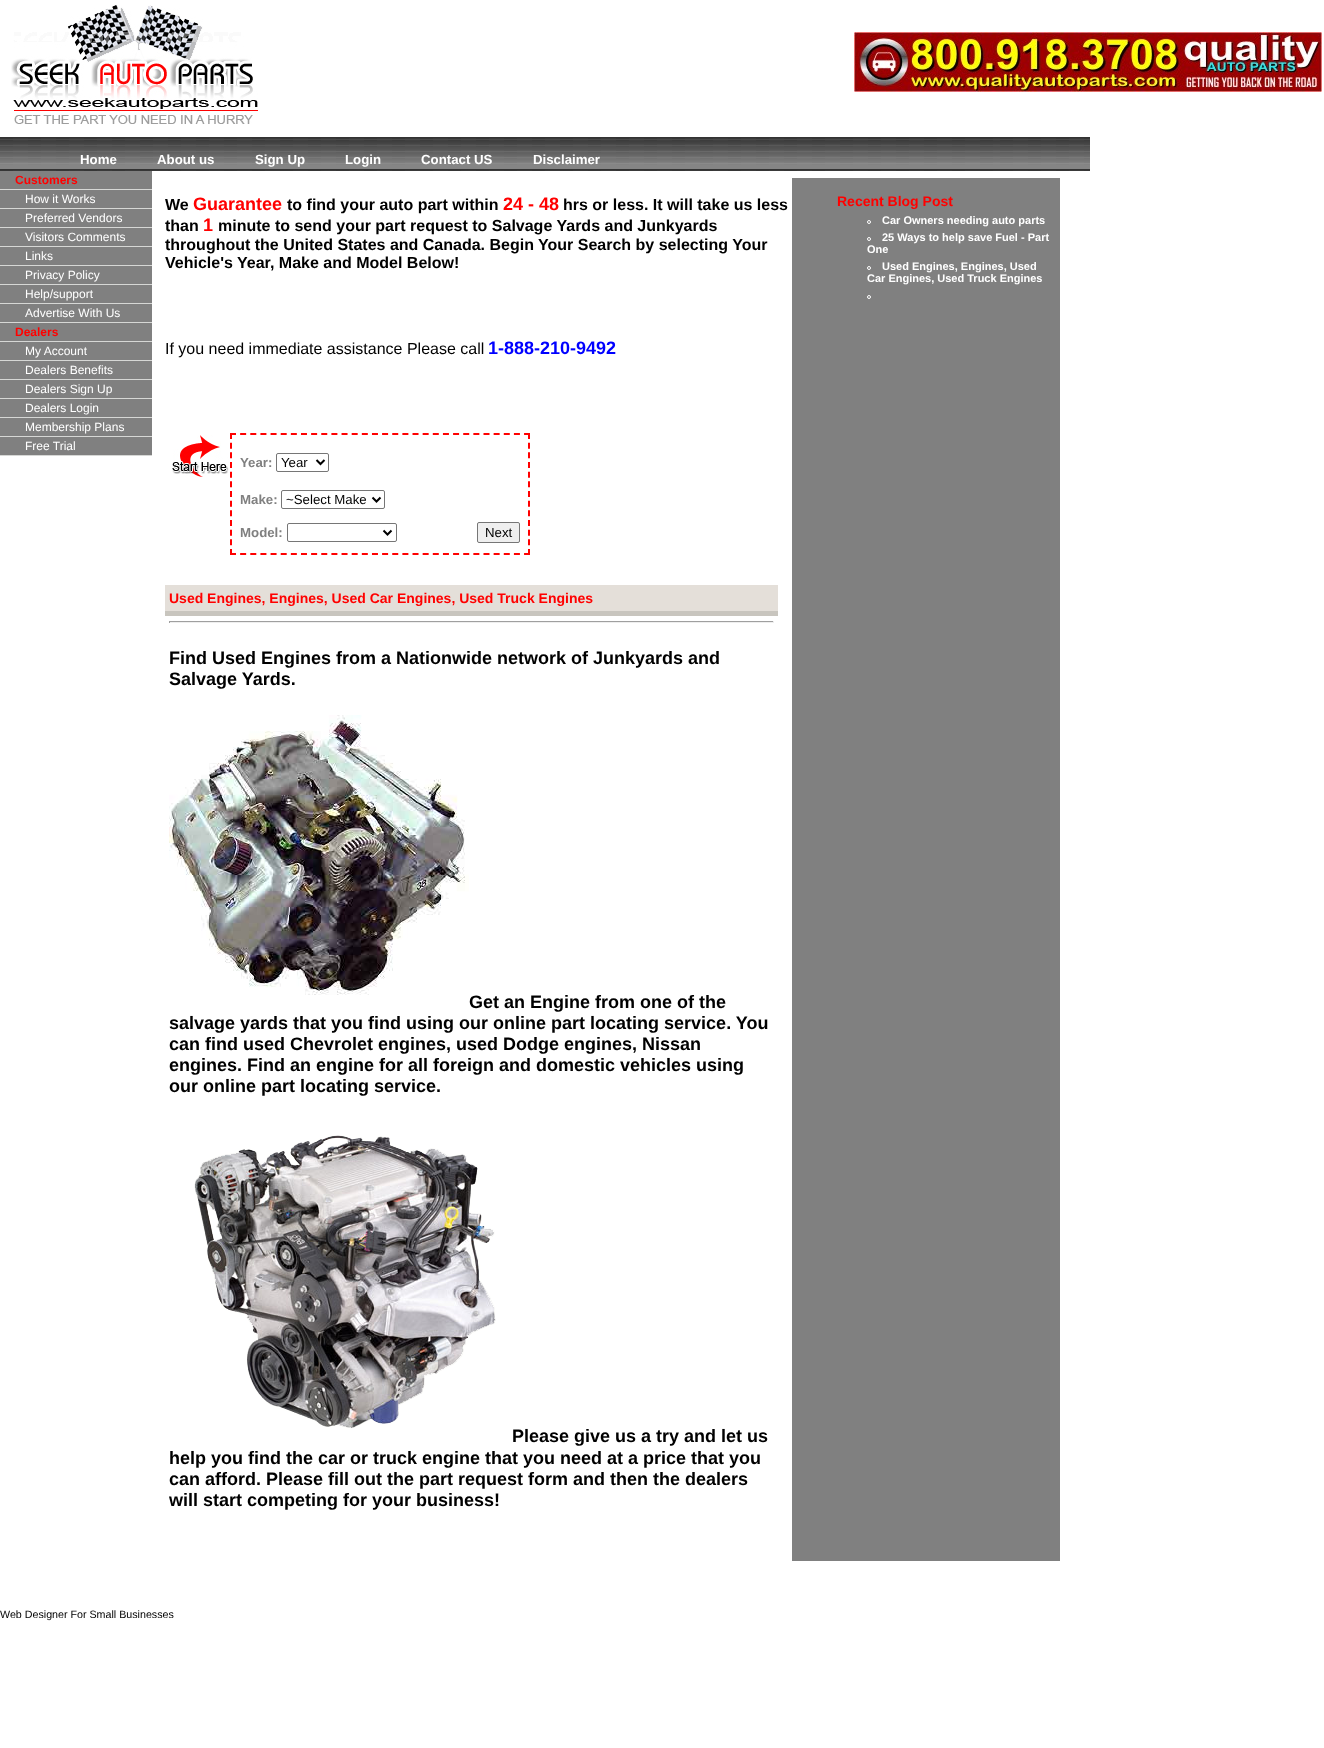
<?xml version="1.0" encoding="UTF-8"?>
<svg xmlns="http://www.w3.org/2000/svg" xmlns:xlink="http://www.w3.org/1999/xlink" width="1324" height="1748">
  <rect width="100%" height="100%" fill="#ffffff" />
  <image x="11" y="5" width="247" height="119" xlink:href="image1.png" />
  <image x="854" y="32" width="468" height="60" xlink:href="image2.png" />
  <image x="0" y="137" width="1090" height="34" xlink:href="image3.png" />
  <rect y="171" width="152" height="284" fill="#808080" />
  <rect y="189" width="152" height="1" fill="#d6d7d5" />
  <rect y="208" width="152" height="1" fill="#d6d7d5" />
  <rect y="227" width="152" height="1" fill="#d6d7d5" />
  <rect y="246" width="152" height="1" fill="#d6d7d5" />
  <rect y="265" width="152" height="1" fill="#d6d7d5" />
  <rect y="284" width="152" height="1" fill="#d6d7d5" />
  <rect y="303" width="152" height="1" fill="#d6d7d5" />
  <rect y="322" width="152" height="1" fill="#d6d7d5" />
  <rect y="341" width="152" height="1" fill="#d6d7d5" />
  <rect y="360" width="152" height="1" fill="#d6d7d5" />
  <rect y="379" width="152" height="1" fill="#d6d7d5" />
  <rect y="398" width="152" height="1" fill="#d6d7d5" />
  <rect y="417" width="152" height="1" fill="#d6d7d5" />
  <rect y="436" width="152" height="1" fill="#d6d7d5" />
  <rect y="455" width="152" height="1" fill="#d6d7d5" />
  <image x="172" y="435" width="57" height="42" xlink:href="image4.png" />
  <path d="M 230 434 h 300" fill="none" stroke="#ff0000" stroke-width="2" stroke-dasharray="6 4.14" />
  <path d="M 529 433 v 122" fill="none" stroke="#ff0000" stroke-width="2" stroke-dasharray="6 3.67" />
  <path d="M 230 554 h 300" fill="none" stroke="#ff0000" stroke-width="2" stroke-dasharray="6 4.14" />
  <path d="M 231 433 v 122" fill="none" stroke="#ff0000" stroke-width="2" stroke-dasharray="6 3.67" />
  <rect x="276.5" y="453.5" width="52" height="18" rx="1.5" fill="none" stroke="#767676" />
  <path d="M 316.5 460 l 4 4 l 4 -4" fill="none" stroke="#000000" stroke-width="2" />
  <rect x="281.5" y="490.5" width="103" height="18" rx="1.5" fill="none" stroke="#767676" />
  <path d="M 372.5 497.5 l 4 4 l 4 -4" fill="none" stroke="#000000" stroke-width="2" />
  <rect x="287.5" y="523.5" width="109" height="18" rx="1.5" fill="none" stroke="#767676" />
  <path d="M 383.5 530.5 l 4 4 l 4 -4" fill="none" stroke="#000000" stroke-width="2" />
  <rect x="477.5" y="522.5" width="42" height="20" rx="1.5" fill="#efefef" stroke="#767676" />
  <image x="165" y="585" width="613" height="31" xlink:href="image5.png" />
  <rect x="169" y="621" width="605" height="1" fill="#9f9f9f" />
  <rect x="773" y="621" width="1" height="2" fill="#eeeeee" />
  <rect x="169" y="622" width="605" height="1" fill="#eeeeee" />
  <rect x="169" y="621" width="1" height="2" fill="#9f9f9f" />
  <image x="169" y="715" width="300" height="280" xlink:href="image6.png" />
  <image x="194" y="1135" width="302" height="294" xlink:href="image7.png" />
  <rect x="792" y="178" width="268" height="1383" fill="#808080" />
  <circle cx="869" cy="222" r="1.5" fill="none" stroke="#ffffff" />
  <circle cx="869" cy="239" r="1.5" fill="none" stroke="#ffffff" />
  <circle cx="869" cy="268" r="1.5" fill="none" stroke="#ffffff" />
  <circle cx="869" cy="297" r="1.5" fill="none" stroke="#ffffff" />
  <text x="80" y="164" style="font-family: Liberation Sans; font-size: 13.25px; font-weight: bold; fill: #ffffff">Home</text>
  <text x="157" y="164" style="font-family: Liberation Sans; font-size: 13.25px; font-weight: bold; fill: #ffffff">About us</text>
  <text x="255" y="164" style="font-family: Liberation Sans; font-size: 13.25px; font-weight: bold; fill: #ffffff">Sign Up</text>
  <text x="345" y="164" style="font-family: Liberation Sans; font-size: 13.25px; font-weight: bold; fill: #ffffff">Login</text>
  <text x="421" y="164" style="font-family: Liberation Sans; font-size: 13.25px; font-weight: bold; fill: #ffffff">Contact US</text>
  <text x="533" y="164" style="font-family: Liberation Sans; font-size: 13.25px; font-weight: bold; fill: #ffffff">Disclaimer</text>
  <text x="15" y="184" style="font-family: Liberation Sans; font-size: 12px; font-weight: bold; fill: #ff0000">Customers</text>
  <text x="25" y="203" style="font-family: Liberation Sans; font-size: 12px; fill: #ffffff">How it Works</text>
  <text x="25" y="222" style="font-family: Liberation Sans; font-size: 12px; fill: #ffffff">Preferred Vendors</text>
  <text x="25" y="241" style="font-family: Liberation Sans; font-size: 12px; fill: #ffffff">Visitors Comments</text>
  <text x="25" y="260" style="font-family: Liberation Sans; font-size: 12px; fill: #ffffff">Links</text>
  <text x="25" y="279" style="font-family: Liberation Sans; font-size: 12px; fill: #ffffff">Privacy Policy</text>
  <text x="25" y="298" style="font-family: Liberation Sans; font-size: 12px; fill: #ffffff">Help/support</text>
  <text x="25" y="317" style="font-family: Liberation Sans; font-size: 12px; fill: #ffffff">Advertise With Us</text>
  <text x="15" y="336" style="font-family: Liberation Sans; font-size: 12px; font-weight: bold; fill: #ff0000">Dealers</text>
  <text x="25" y="355" style="font-family: Liberation Sans; font-size: 12px; fill: #ffffff">My Account</text>
  <text x="25" y="374" style="font-family: Liberation Sans; font-size: 12px; fill: #ffffff">Dealers Benefits</text>
  <text x="25" y="393" style="font-family: Liberation Sans; font-size: 12px; fill: #ffffff">Dealers Sign Up</text>
  <text x="25" y="412" style="font-family: Liberation Sans; font-size: 12px; fill: #ffffff">Dealers Login</text>
  <text x="25" y="431" style="font-family: Liberation Sans; font-size: 12px; fill: #ffffff">Membership Plans</text>
  <text x="25" y="450" style="font-family: Liberation Sans; font-size: 12px; fill: #ffffff">Free Trial</text>
  <text x="165" y="210" style="font-family: Liberation Sans; font-size: 16px; font-weight: bold; fill: #000000">We</text>
  <text x="193" y="210" style="font-family: Liberation Sans; font-size: 18px; font-weight: bold; fill: #ff0000">Guarantee</text>
  <text x="287" y="210" style="font-family: Liberation Sans; font-size: 16px; font-weight: bold; fill: #000000">to find your auto part within</text>
  <text x="503" y="210" style="font-family: Liberation Sans; font-size: 18px; font-weight: bold; fill: #ff0000">24 - 48</text>
  <text x="563" y="210" style="font-family: Liberation Sans; font-size: 16px; font-weight: bold; fill: #000000">hrs or less. It will take us less</text>
  <text x="165" y="231" style="font-family: Liberation Sans; font-size: 16px; font-weight: bold; fill: #000000">than</text>
  <text x="203" y="231" style="font-family: Liberation Sans; font-size: 18px; font-weight: bold; fill: #ff0000">1</text>
  <text x="218" y="231" style="font-family: Liberation Sans; font-size: 16px; font-weight: bold; fill: #000000">minute to send your part request to Salvage Yards and Junkyards</text>
  <text x="165" y="250" style="font-family: Liberation Sans; font-size: 16px; font-weight: bold; fill: #000000">throughout the United States and Canada. Begin Your Search by selecting Your</text>
  <text x="165" y="268" style="font-family: Liberation Sans; font-size: 16px; font-weight: bold; fill: #000000">Vehicle's Year, Make and Model Below!</text>
  <text x="165" y="354" style="font-family: Liberation Sans; font-size: 16px; fill: #000000">If you need immediate assistance Please call</text>
  <text x="488" y="354" style="font-family: Liberation Sans; font-size: 18px; font-weight: bold; fill: #0000ff">1-888-210-9492</text>
  <text x="240" y="467" style="font-family: Liberation Sans; font-size: 13.25px; font-weight: bold; fill: #808080">Year:</text>
  <text x="281" y="467" style="font-family: Liberation Sans; font-size: 13.25px; fill: #000000">Year</text>
  <text x="240" y="504" style="font-family: Liberation Sans; font-size: 13.25px; font-weight: bold; fill: #808080">Make:</text>
  <text x="286" y="504" style="font-family: Liberation Sans; font-size: 13.25px; fill: #000000">~Select Make</text>
  <text x="240" y="537" style="font-family: Liberation Sans; font-size: 13.25px; font-weight: bold; fill: #808080">Model:</text>
  <text x="485" y="537" style="font-family: Liberation Sans; font-size: 13.25px; fill: #000000">Next</text>
  <text x="169" y="603" style="font-family: Liberation Sans; font-size: 14px; font-weight: bold; fill: #ff0000">Used Engines, Engines, Used Car Engines, Used Truck Engines</text>
  <text x="169" y="664" style="font-family: Liberation Sans; font-size: 18px; font-weight: bold; fill: #000000">Find Used Engines from a Nationwide network of Junkyards and</text>
  <text x="169" y="685" style="font-family: Liberation Sans; font-size: 18px; font-weight: bold; fill: #000000">Salvage Yards.</text>
  <text x="469" y="1008" style="font-family: Liberation Sans; font-size: 18px; font-weight: bold; fill: #000000">Get an Engine from one of the</text>
  <text x="169" y="1029" style="font-family: Liberation Sans; font-size: 18px; font-weight: bold; fill: #000000">salvage yards that you find using our online part locating service. You</text>
  <text x="169" y="1050" style="font-family: Liberation Sans; font-size: 18px; font-weight: bold; fill: #000000">can find used Chevrolet engines, used Dodge engines, Nissan</text>
  <text x="169" y="1071" style="font-family: Liberation Sans; font-size: 18px; font-weight: bold; fill: #000000">engines. Find an engine for all foreign and domestic vehicles using</text>
  <text x="169" y="1092" style="font-family: Liberation Sans; font-size: 18px; font-weight: bold; fill: #000000">our online part locating service.</text>
  <text x="512" y="1442" style="font-family: Liberation Sans; font-size: 18px; font-weight: bold; fill: #000000">Please give us a try and let us</text>
  <text x="169" y="1464" style="font-family: Liberation Sans; font-size: 18px; font-weight: bold; fill: #000000">help you find the car or truck engine that you need at a price that you</text>
  <text x="169" y="1485" style="font-family: Liberation Sans; font-size: 18px; font-weight: bold; fill: #000000">can afford. Please fill out the part request form and then the dealers</text>
  <text x="169" y="1506" style="font-family: Liberation Sans; font-size: 18px; font-weight: bold; fill: #000000">will start competing for your business!</text>
  <text x="837" y="206" style="font-family: Liberation Sans; font-size: 14px; font-weight: bold; fill: #ff0000">Recent Blog Post</text>
  <text x="882" y="224" style="font-family: Liberation Sans; font-size: 11px; font-weight: bold; fill: #ffffff">Car Owners needing auto parts</text>
  <text x="882" y="241" style="font-family: Liberation Sans; font-size: 11px; font-weight: bold; fill: #ffffff">25 Ways to help save Fuel - Part</text>
  <text x="867" y="253" style="font-family: Liberation Sans; font-size: 11px; font-weight: bold; fill: #ffffff">One</text>
  <text x="882" y="270" style="font-family: Liberation Sans; font-size: 11px; font-weight: bold; fill: #ffffff">Used Engines, Engines, Used</text>
  <text x="867" y="282" style="font-family: Liberation Sans; font-size: 11px; font-weight: bold; fill: #ffffff">Car Engines, Used Truck Engines</text>
  <text x="0" y="1618" style="font-family: Liberation Sans; font-size: 10.7px; fill: #000000">Web Designer For Small Businesses</text>
</svg>
